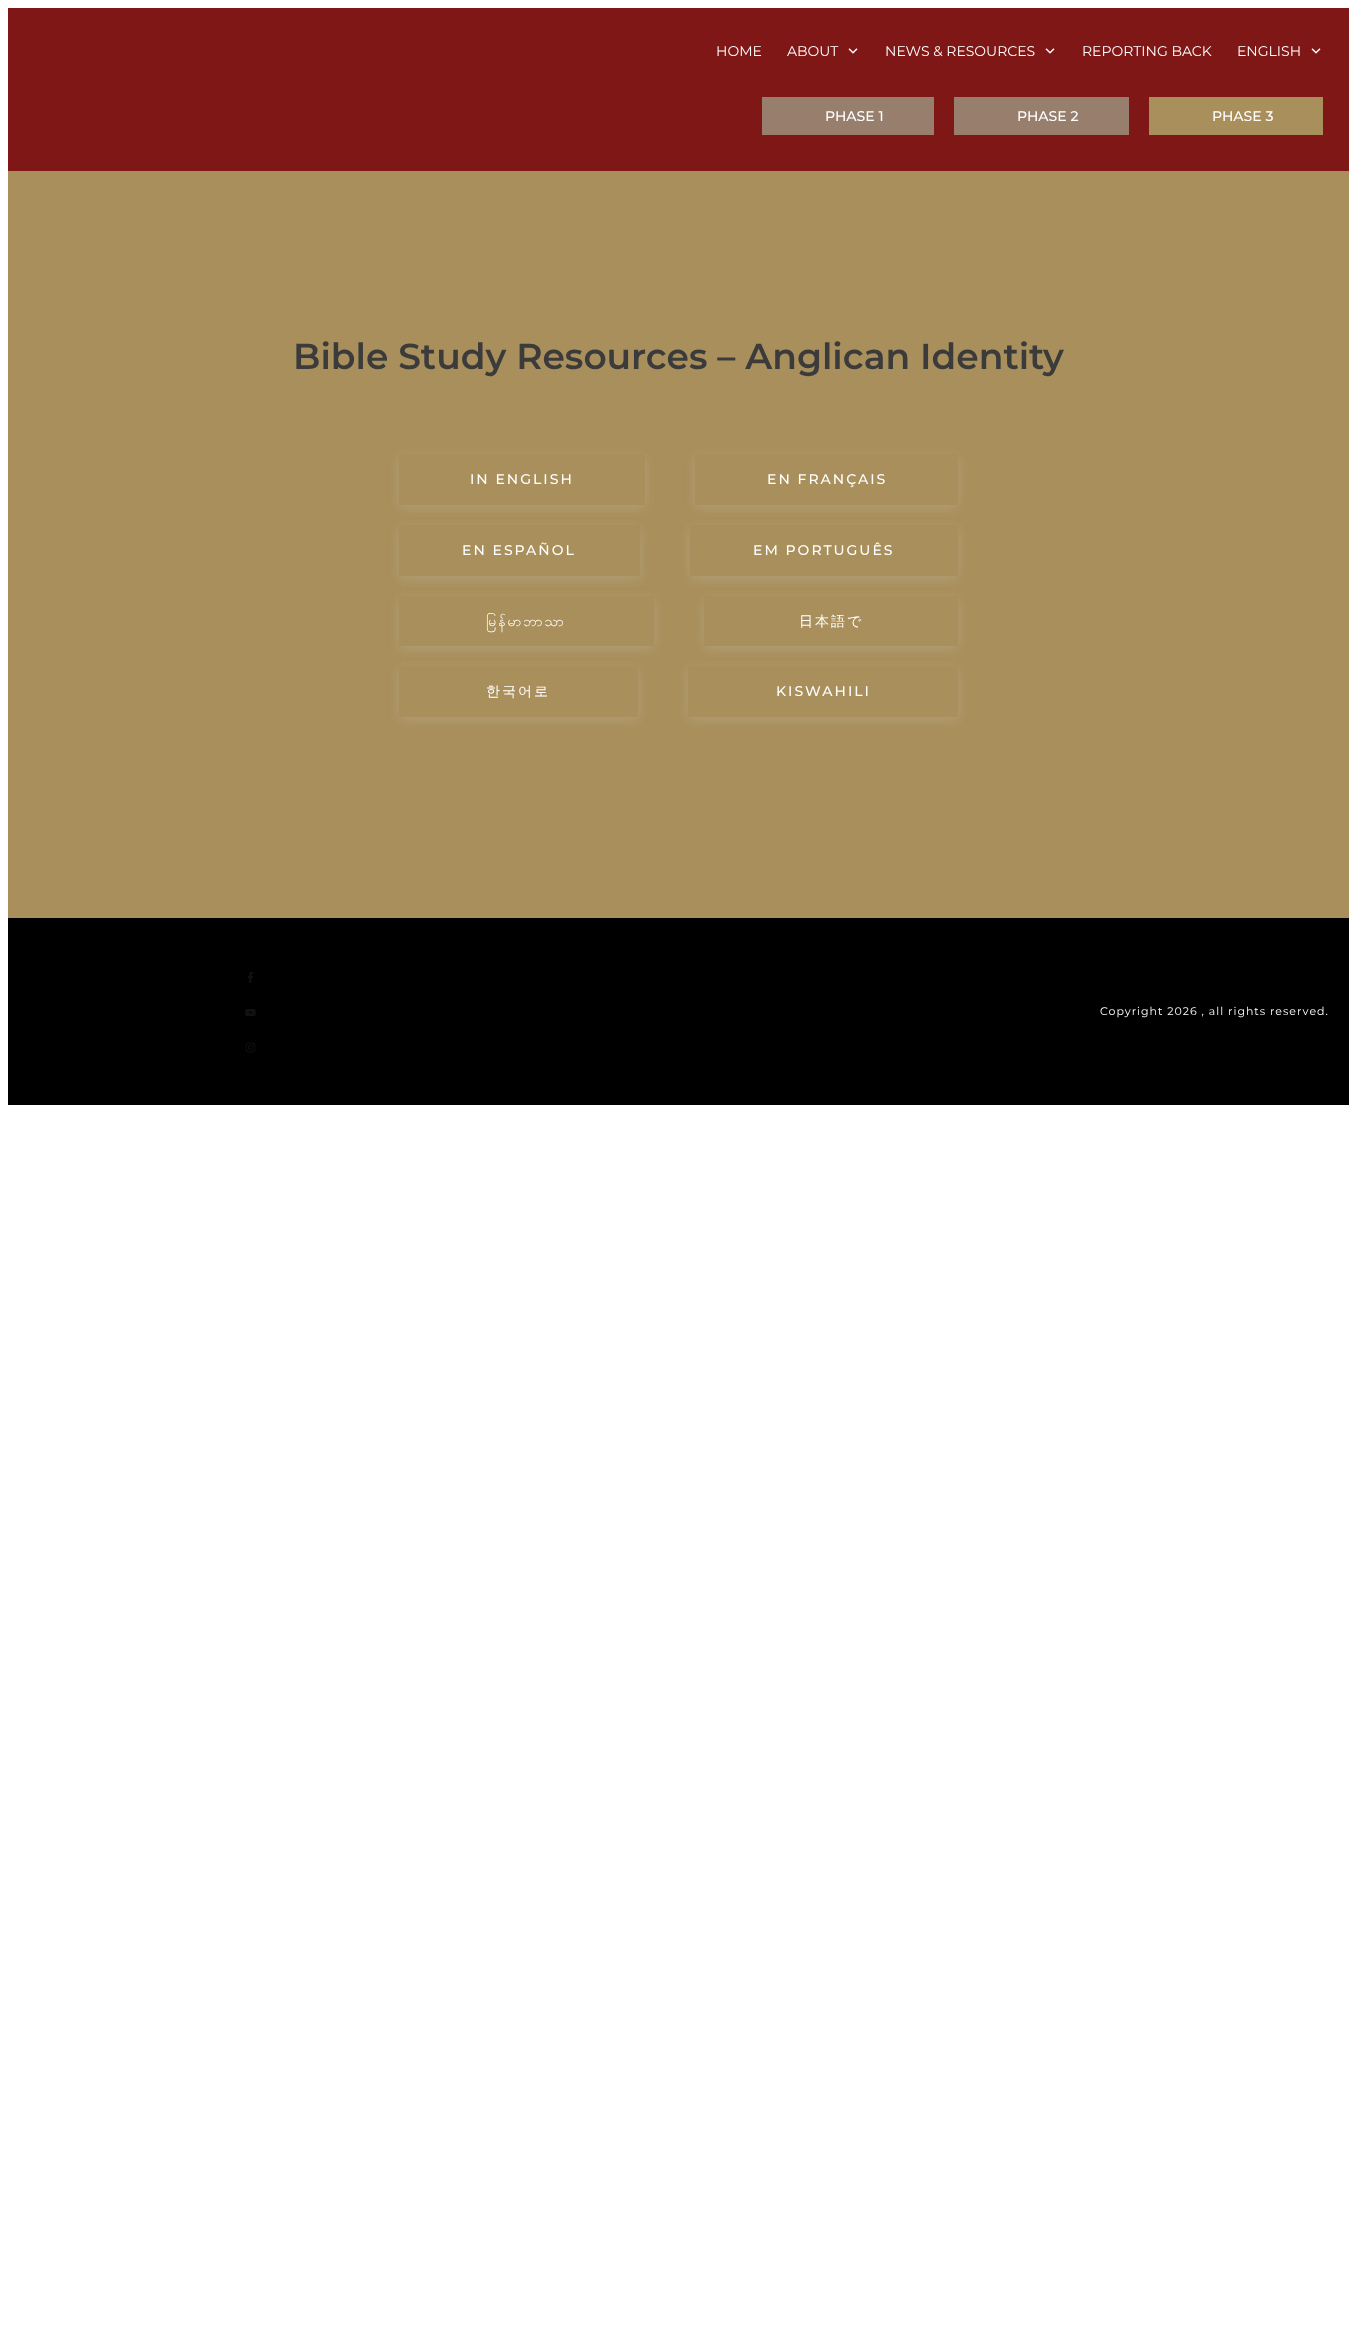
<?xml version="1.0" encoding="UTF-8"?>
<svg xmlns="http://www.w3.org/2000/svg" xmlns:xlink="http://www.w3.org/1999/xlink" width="1357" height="2352">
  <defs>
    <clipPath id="clip1"><path d="M 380 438 h 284 v 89 h -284 z m 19 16 h 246 v 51 h -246 z" clip-rule="evenodd" /></clipPath>
    <clipPath id="clip2"><path d="M 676 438 h 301 v 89 h -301 z m 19 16 h 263 v 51 h -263 z" clip-rule="evenodd" /></clipPath>
    <clipPath id="clip3"><path d="M 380 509 h 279 v 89 h -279 z m 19 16 h 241 v 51 h -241 z" clip-rule="evenodd" /></clipPath>
    <clipPath id="clip4"><path d="M 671 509 h 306 v 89 h -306 z m 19 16 h 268 v 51 h -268 z" clip-rule="evenodd" /></clipPath>
    <clipPath id="clip5"><path d="M 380 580 h 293 v 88 h -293 z m 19 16 h 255 v 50 h -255 z" clip-rule="evenodd" /></clipPath>
    <clipPath id="clip6"><path d="M 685 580 h 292 v 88 h -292 z m 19 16 h 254 v 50 h -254 z" clip-rule="evenodd" /></clipPath>
    <clipPath id="clip7"><path d="M 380 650 h 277 v 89 h -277 z m 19 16 h 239 v 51 h -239 z" clip-rule="evenodd" /></clipPath>
    <clipPath id="clip8"><path d="M 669 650 h 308 v 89 h -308 z m 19 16 h 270 v 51 h -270 z" clip-rule="evenodd" /></clipPath>
  </defs>
  <rect width="100%" height="100%" fill="#ffffff" />
  <rect x="8" y="171" width="1341" height="747" fill="#a98f5b" />
  <rect x="8" y="8" width="1341" height="163" fill="#7f1716" />
  <image x="848" y="48" width="10" height="6" xlink:href="image1.png" />
  <image x="1045" y="48" width="10" height="6" xlink:href="image1.png" />
  <image x="1311" y="48" width="10" height="6" xlink:href="image1.png" />
  <rect x="762" y="97" width="172" height="38" fill="#987f6d" />
  <rect x="954" y="97" width="175" height="38" fill="#987f6d" />
  <rect x="1149" y="97" width="174" height="38" fill="#a98f5b" />
  <g clip-path="url(#clip1)">
    <rect x="399" y="457" width="246" height="51" fill="#cbcbcb" fill-opacity="0.25" filter="blur(6px)" />
  </g>
  <g clip-path="url(#clip2)">
    <rect x="695" y="457" width="263" height="51" fill="#cbcbcb" fill-opacity="0.25" filter="blur(6px)" />
  </g>
  <g clip-path="url(#clip3)">
    <rect x="399" y="528" width="241" height="51" fill="#cbcbcb" fill-opacity="0.25" filter="blur(6px)" />
  </g>
  <g clip-path="url(#clip4)">
    <rect x="690" y="528" width="268" height="51" fill="#cbcbcb" fill-opacity="0.25" filter="blur(6px)" />
  </g>
  <g clip-path="url(#clip5)">
    <rect x="399" y="599" width="255" height="50" fill="#cbcbcb" fill-opacity="0.25" filter="blur(6px)" />
  </g>
  <g clip-path="url(#clip6)">
    <rect x="704" y="599" width="254" height="50" fill="#cbcbcb" fill-opacity="0.25" filter="blur(6px)" />
  </g>
  <g clip-path="url(#clip7)">
    <rect x="399" y="669" width="239" height="51" fill="#cbcbcb" fill-opacity="0.25" filter="blur(6px)" />
  </g>
  <g clip-path="url(#clip8)">
    <rect x="688" y="669" width="270" height="51" fill="#cbcbcb" fill-opacity="0.25" filter="blur(6px)" />
  </g>
  <rect x="8" y="918" width="1341" height="187" fill="#000000" />
  <image x="247" y="972" width="7" height="11" xlink:href="image2.png" />
  <image x="245" y="1009" width="11" height="7" xlink:href="image3.png" />
  <image x="245" y="1042" width="11" height="11" xlink:href="image4.png" />
  <text x="716" y="56" style="font-family: Montserrat; font-size: 14px; fill: #ffffff">HOME</text>
  <text x="787" y="56" style="font-family: Montserrat; font-size: 14px; fill: #ffffff">ABOUT</text>
  <text x="885" y="56" style="font-family: Montserrat; font-size: 14px; fill: #ffffff">NEWS &amp; RESOURCES</text>
  <text x="1082" y="56" style="font-family: Montserrat; font-size: 14px; fill: #ffffff">REPORTING BACK</text>
  <text x="1237" y="56" style="font-family: Montserrat; font-size: 14px; fill: #ffffff">ENGLISH</text>
  <text x="825" y="121" style="font-family: Montserrat; font-size: 14px; font-weight: 500; fill: #ffffff">PHASE 1</text>
  <text x="1017" y="121" style="font-family: Montserrat; font-size: 14px; font-weight: 500; fill: #ffffff">PHASE 2</text>
  <text x="1212" y="121" style="font-family: Montserrat; font-size: 14px; font-weight: 500; fill: #ffffff">PHASE 3</text>
  <text x="293" y="369" style="font-family: Montserrat; font-size: 36px; font-weight: 600; fill: #3b3b3b">Bible Study Resources – Anglican Identity</text>
  <text x="470" y="484" style="font-family: Montserrat; font-size: 14px; font-weight: 500; letter-spacing: 2px; fill: #ffffff">IN ENGLISH</text>
  <text x="767" y="484" style="font-family: Montserrat; font-size: 14px; font-weight: 500; letter-spacing: 2px; fill: #ffffff">EN FRANÇAIS</text>
  <text x="462" y="555" style="font-family: Montserrat; font-size: 14px; font-weight: 500; letter-spacing: 2px; fill: #ffffff">EN ESPAÑOL</text>
  <text x="753" y="555" style="font-family: Montserrat; font-size: 14px; font-weight: 500; letter-spacing: 2px; fill: #ffffff">EM PORTUGUÊS</text>
  <text x="486" y="626" style="font-family: Padauk; font-size: 14px; letter-spacing: 2px; fill: #ffffff">မြန်မာဘာသာ</text>
  <text x="799" y="626" style="font-family: WenQuanYi Zen Hei; font-size: 14px; font-weight: 500; letter-spacing: 2px; fill: #ffffff">日本語で</text>
  <text x="486" y="696" style="font-family: WenQuanYi Zen Hei; font-size: 14px; font-weight: 500; letter-spacing: 2px; fill: #ffffff">한국어로</text>
  <text x="776" y="696" style="font-family: Montserrat; font-size: 14px; font-weight: 500; letter-spacing: 2px; fill: #ffffff">KISWAHILI</text>
  <text x="1100" y="1015" style="font-family: Montserrat; font-size: 11px; letter-spacing: 1px; fill: #ffffff">Copyright 2026 , all rights reserved.</text>
</svg>
